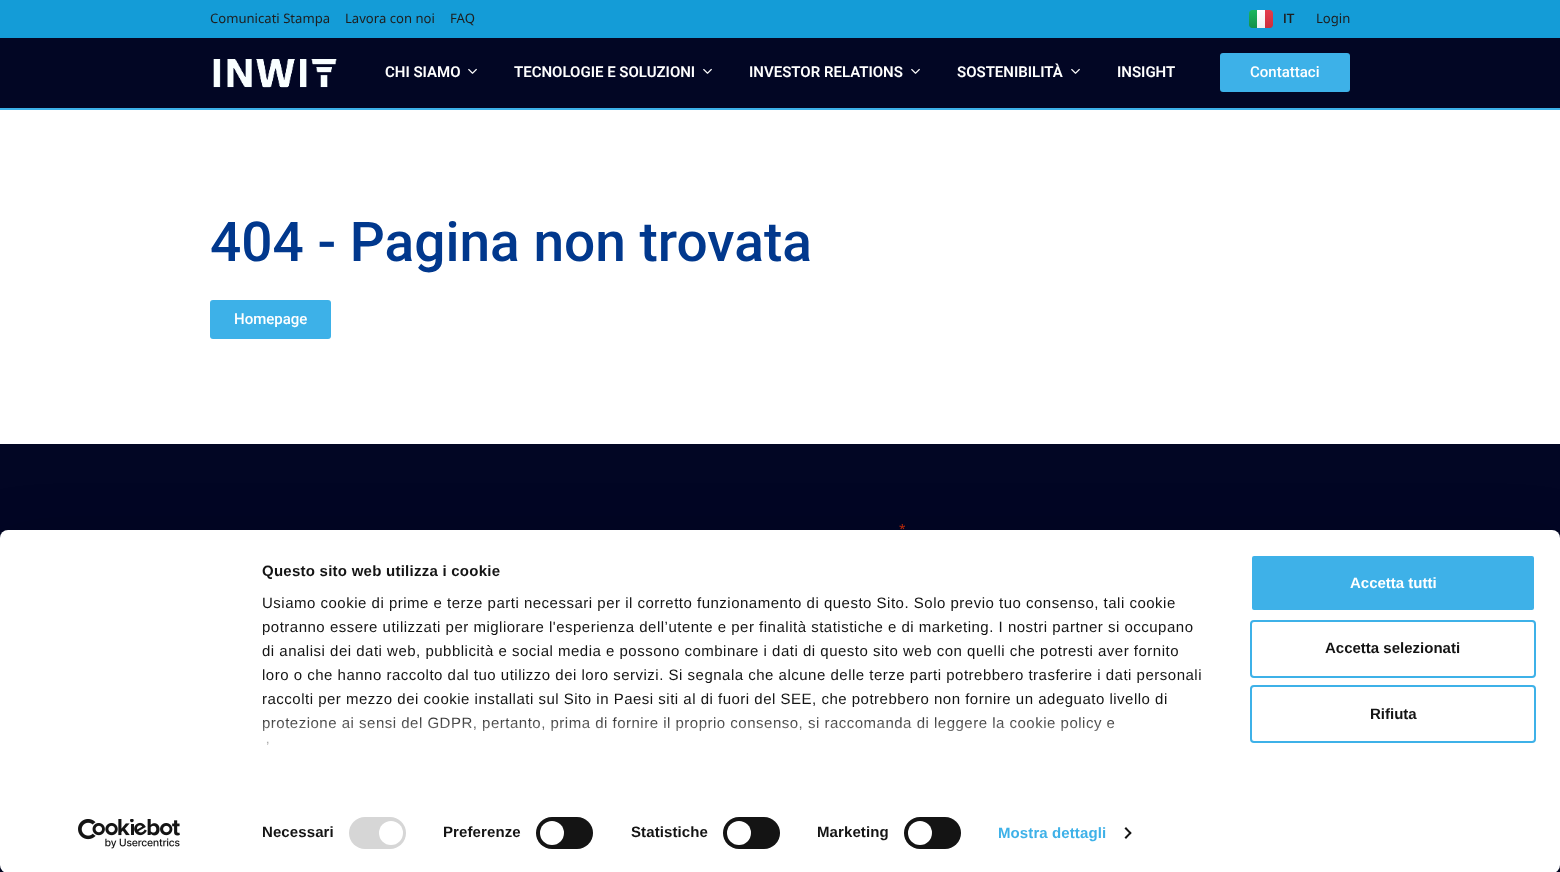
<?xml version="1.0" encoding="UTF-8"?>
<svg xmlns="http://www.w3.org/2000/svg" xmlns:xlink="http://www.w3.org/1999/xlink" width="1560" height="872">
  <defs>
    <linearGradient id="g1" gradientUnits="userSpaceOnUse" x1="1252" y1="10" x2="1252" y2="28"><stop offset="0" stop-color="#1bb65d" /><stop offset="1" stop-color="#139149" /></linearGradient>
    <linearGradient id="g2" gradientUnits="userSpaceOnUse" x1="1267" y1="10" x2="1267" y2="28"><stop offset="0" stop-color="#e43d4c" /><stop offset="1" stop-color="#cc2e3c" /></linearGradient>
    <linearGradient id="g3" gradientUnits="userSpaceOnUse" x1="1261" y1="10" x2="1261" y2="28"><stop offset="0" stop-color="#ffffff" /><stop offset="1" stop-color="#f0f0f0" /></linearGradient>
    <linearGradient id="g4" gradientUnits="userSpaceOnUse" x1="732" y1="787" x2="732" y2="712"><stop offset="0" stop-color="#ffffff" /><stop offset="0.5" stop-color="#ffffff" stop-opacity="0.8" /><stop offset="1" stop-color="#ffffff" stop-opacity="0" /></linearGradient>
  </defs>
  <rect width="100%" height="100%" fill="#ffffff" />
  <rect width="1560" height="38" fill="#149cd7" />
  <path d="M 1252 10 h 5 v 18 h -5 c -1.5 0 -3 -1.5 -3 -3 v -12 c 0 -1.5 1.5 -3 3 -3 z" fill="url(#g1)" />
  <path d="M 1260 10 h 10 c 1.5 0 3 1.5 3 3 v 12 c 0 1.5 -1.5 3 -3 3 h -10 z" fill="url(#g2)" />
  <rect x="1257" y="10" width="8" height="18" fill="url(#g3)" />
  <rect y="38" width="1560" height="70" fill="#020624" />
  <rect y="108" width="1560" height="2" fill="#3db1e8" />
  <image x="213" y="59" width="124" height="29" xlink:href="image1.png" />
  <image x="468" y="68" width="9" height="6" xlink:href="image2.png" />
  <image x="703" y="68" width="9" height="6" xlink:href="image2.png" />
  <image x="911" y="68" width="9" height="6" xlink:href="image2.png" />
  <image x="1071" y="68" width="9" height="6" xlink:href="image2.png" />
  <rect x="1220" y="53" width="130" height="39" rx="3" fill="#3db1e8" />
  <rect x="210" y="300" width="121" height="39" rx="3" fill="#3db1e8" />
  <rect y="444" width="1560" height="428" fill="#020624" />
  <rect y="560" width="1560" height="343" rx="8" fill="#000000" fill-opacity="0.3" filter="blur(35px)" />
  <rect y="530" width="1560" height="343" rx="8" fill="#ffffff" />
  <rect x="349" y="817" width="57" height="32" rx="16" fill="#d6d6d6" />
  <circle cx="391" cy="833" r="12" fill="#ffffff" />
  <rect x="536" y="817" width="57" height="32" rx="16" fill="#141414" />
  <circle cx="552" cy="833" r="12" fill="#ffffff" />
  <rect x="723" y="817" width="57" height="32" rx="16" fill="#141414" />
  <circle cx="739" cy="833" r="12" fill="#ffffff" />
  <rect x="904" y="817" width="57" height="32" rx="16" fill="#141414" />
  <circle cx="920" cy="833" r="12" fill="#ffffff" />
  <path d="M 1126 827 l 5.5 6 l -1 1.5 l -6 -6 z" fill="#141414" />
  <path d="M 1130.5 831.5 l 1 1.5 l -5.5 6 l -1.5 -1.5 z" fill="#141414" />
  <rect x="1251" y="555" width="284" height="56" rx="3" fill="#3eb1e8" stroke="#ffffff" stroke-width="2" />
  <rect x="1251" y="621" width="284" height="56" rx="3" fill="none" stroke="#3eb1e8" stroke-width="2" />
  <rect x="1251" y="686" width="284" height="56" rx="3" fill="none" stroke="#3eb1e8" stroke-width="2" />
  <image x="78" y="819" width="102" height="30" xlink:href="image3.png" />
  <text x="210" y="23" style="font-family: Noto Sans; font-size: 13.1px; fill: #1e1e1e">Comunicati Stampa</text>
  <text x="345" y="23" style="font-family: Noto Sans; font-size: 13.1px; fill: #1e1e1e">Lavora con noi</text>
  <text x="450" y="23" style="font-family: Noto Sans; font-size: 13.1px; fill: #1e1e1e">FAQ</text>
  <text x="1283" y="23" style="font-family: Roboto; font-size: 13.1px; font-weight: 500; fill: #1e1e1e">IT</text>
  <text x="1316" y="23" style="font-family: Noto Sans; font-size: 13.1px; fill: #1e1e1e">Login</text>
  <text x="385" y="77" style="font-family: Roboto; font-size: 15px; font-weight: 600; fill: #ffffff">CHI SIAMO</text>
  <text x="514" y="77" style="font-family: Roboto; font-size: 15px; font-weight: 600; fill: #ffffff">TECNOLOGIE E SOLUZIONI</text>
  <text x="749" y="77" style="font-family: Roboto; font-size: 15px; font-weight: 600; fill: #ffffff">INVESTOR RELATIONS</text>
  <text x="957" y="77" style="font-family: Roboto; font-size: 15px; font-weight: 600; fill: #ffffff">SOSTENIBILITÀ</text>
  <text x="1117" y="77" style="font-family: Roboto; font-size: 15px; font-weight: 600; fill: #ffffff">INSIGHT</text>
  <text x="1250" y="77" style="font-family: Roboto; font-size: 15px; font-weight: 500; fill: #ffffff">Contattaci</text>
  <text x="210" y="261" style="font-family: Roboto; font-size: 55px; font-weight: 500; fill: #01388d">404 - Pagina non trovata</text>
  <text x="234" y="324" style="font-family: Roboto; font-size: 15px; font-weight: 500; fill: #ffffff">Homepage</text>
  <text x="899" y="533" style="font-family: Noto Sans; font-size: 12px; fill: #c02b0a">*</text>
  <text x="262" y="576" style="font-family: Liberation Sans; font-size: 15px; font-weight: bold; letter-spacing: 0.25px; fill: #141414">Questo sito web utilizza i cookie</text>
  <text x="262" y="608" style="font-family: Liberation Sans; font-size: 15px; letter-spacing: 0.5px; fill: #141414">Usiamo cookie di prime e terze parti necessari per il corretto funzionamento di questo Sito. Solo previo tuo consenso, tali cookie</text>
  <text x="262" y="632" style="font-family: Liberation Sans; font-size: 15px; letter-spacing: 0.5px; fill: #141414">potranno essere utilizzati per migliorare l'esperienza dell’utente e per finalità statistiche e di marketing. I nostri partner si occupano</text>
  <text x="262" y="656" style="font-family: Liberation Sans; font-size: 15px; letter-spacing: 0.5px; fill: #141414">di analisi dei dati web, pubblicità e social media e possono combinare i dati di questo sito web con quelli che potresti aver fornito</text>
  <text x="262" y="680" style="font-family: Liberation Sans; font-size: 15px; letter-spacing: 0.5px; fill: #141414">loro o che hanno raccolto dal tuo utilizzo dei loro servizi. Si segnala che alcune delle terze parti potrebbero trasferire i dati personali</text>
  <text x="262" y="704" style="font-family: Liberation Sans; font-size: 15px; letter-spacing: 0.5px; fill: #141414">raccolti per mezzo dei cookie installati sul Sito in Paesi siti al di fuori del SEE, che potrebbero non fornire un adeguato livello di</text>
  <text x="262" y="728" style="font-family: Liberation Sans; font-size: 15px; letter-spacing: 0.5px; fill: #141414">protezione ai sensi del GDPR, pertanto, prima di fornire il proprio consenso, si raccomanda di leggere la cookie policy e</text>
  <text x="266" y="752" style="font-family: Liberation Sans; font-size: 15px; letter-spacing: 0.5px; fill: #141414">’</text>
  <rect x="263" y="717" width="852" height="28" fill="url(#g4)" />
  <text x="262" y="837" style="font-family: Liberation Sans; font-size: 15px; font-weight: bold; letter-spacing: 0.1px; fill: #141414">Necessari</text>
  <text x="443" y="837" style="font-family: Liberation Sans; font-size: 15px; font-weight: bold; letter-spacing: 0.1px; fill: #141414">Preferenze</text>
  <text x="631" y="837" style="font-family: Liberation Sans; font-size: 15px; font-weight: bold; letter-spacing: 0.1px; fill: #141414">Statistiche</text>
  <text x="817" y="837" style="font-family: Liberation Sans; font-size: 15px; font-weight: bold; letter-spacing: 0.1px; fill: #141414">Marketing</text>
  <text x="998" y="838" style="font-family: Liberation Sans; font-size: 15px; font-weight: bold; letter-spacing: 0.1px; fill: #3eb1e8">Mostra dettagli</text>
  <text x="1350" y="588" style="font-family: Liberation Sans; font-size: 15px; font-weight: bold; fill: #ffffff">Accetta tutti</text>
  <text x="1325" y="653" style="font-family: Liberation Sans; font-size: 15px; font-weight: bold; fill: #141414">Accetta selezionati</text>
  <text x="1370" y="719" style="font-family: Liberation Sans; font-size: 15px; font-weight: bold; fill: #141414">Rifiuta</text>
</svg>
